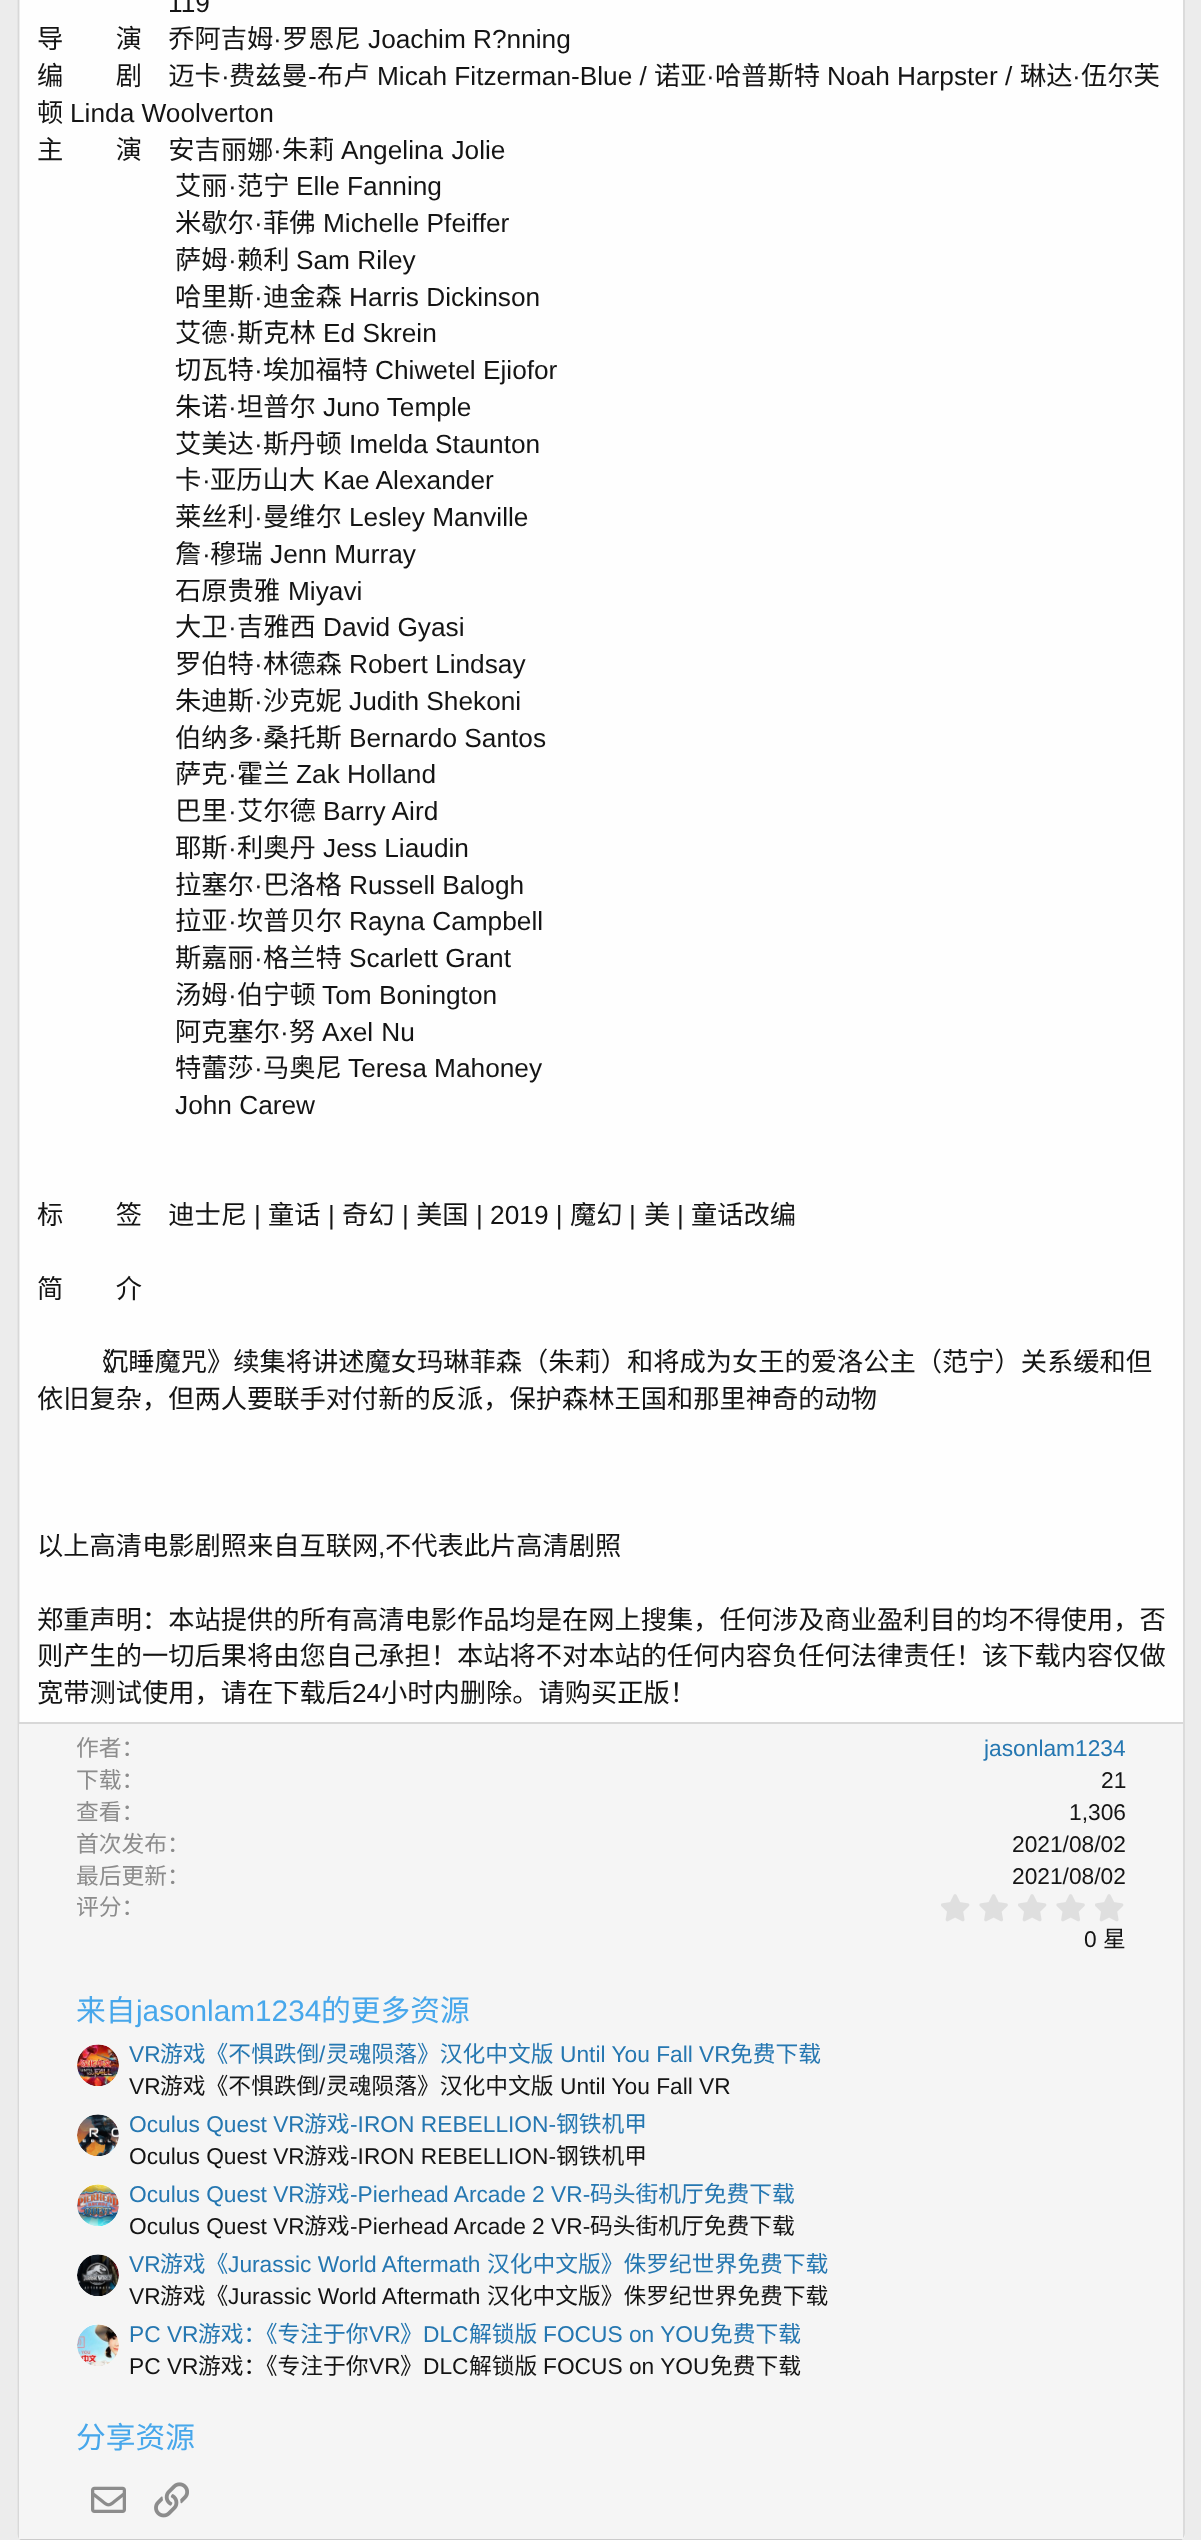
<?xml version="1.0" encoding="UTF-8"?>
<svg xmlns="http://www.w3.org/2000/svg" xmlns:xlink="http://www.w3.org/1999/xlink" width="1201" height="2540">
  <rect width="100%" height="100%" fill="#ececec" />
  <rect x="18" y="-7" width="1167" height="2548" rx="7" fill="#fefefe" />
  <path d="M 1182 -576.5 c 1 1 2 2.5 2 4.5 v 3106 c 0 1.5 -1 3 -2 4.5" fill="none" stroke="#d8d8d8" stroke-width="1.8" />
  <path d="M 1182 2538.5 c -1 1 -2.5 1.5 -4 1.5 h -1153.5 c -1.5 0 -3 -0.5 -4.5 -1.5" fill="none" stroke="#cbcbcb" stroke-width="1.8" />
  <path d="M 20 2538.5 c -1 -1.5 -1.5 -3 -1.5 -4.5 v -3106 c 0 -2 0.5 -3.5 1.5 -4.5" fill="none" stroke="#d8d8d8" stroke-width="1.8" />
  <rect x="19" y="1724" width="1164" height="815" fill="#f5f5f5" />
  <rect x="19" y="1722" width="1164" height="2" fill="#d8d8d8" />
  <image x="941" y="1894" width="29" height="28" xlink:href="image1.png" />
  <image x="979" y="1894" width="29" height="28" xlink:href="image2.png" />
  <image x="1018" y="1894" width="29" height="28" xlink:href="image1.png" />
  <image x="1056" y="1894" width="29" height="28" xlink:href="image2.png" />
  <image x="1095" y="1894" width="29" height="28" xlink:href="image1.png" />
  <circle cx="98" cy="2065" r="21" fill="#fefefe" />
  <image x="77" y="2044" width="42" height="42" xlink:href="image3.png" />
  <circle cx="98" cy="2135" r="21" fill="#fefefe" />
  <image x="77" y="2114" width="42" height="42" xlink:href="image4.png" />
  <circle cx="98" cy="2205" r="21" fill="#fefefe" />
  <image x="77" y="2184" width="42" height="42" xlink:href="image5.png" />
  <circle cx="98" cy="2275" r="21" fill="#fefefe" />
  <image x="77" y="2254" width="42" height="42" xlink:href="image6.png" />
  <circle cx="98" cy="2345" r="21" fill="#fefefe" />
  <image x="77" y="2324" width="42" height="42" xlink:href="image7.png" />
  <image x="91" y="2486" width="35" height="27" xlink:href="image8.png" />
  <image x="154" y="2482" width="35" height="36" xlink:href="image9.png" />
  <text x="168" y="12" style="font-family: Liberation Sans; font-size: 26.25px; fill: #141414">119</text>
  <text x="37" y="48" style="font-family: Noto Sans CJK SC; font-size: 26.25px; fill: #141414">导　　演　乔阿吉姆</text>
  <text x="273" y="48" style="font-family: Liberation Sans; font-size: 26.25px; fill: #141414">·</text>
  <text x="282" y="48" style="font-family: Noto Sans CJK SC; font-size: 26.25px; fill: #141414">罗恩尼</text>
  <text x="368" y="48" style="font-family: Liberation Sans; font-size: 26.25px; fill: #141414">Joachim R?nning</text>
  <text x="37" y="85" style="font-family: Noto Sans CJK SC; font-size: 26.25px; fill: #141414">编　　剧　迈卡</text>
  <text x="221" y="85" style="font-family: Liberation Sans; font-size: 26.25px; fill: #141414">·</text>
  <text x="229" y="85" style="font-family: Noto Sans CJK SC; font-size: 26.25px; fill: #141414">费兹曼</text>
  <text x="308" y="85" style="font-family: Liberation Sans; font-size: 26.25px; fill: #141414">-</text>
  <text x="317" y="85" style="font-family: Noto Sans CJK SC; font-size: 26.25px; fill: #141414">布卢</text>
  <text x="377" y="85" style="font-family: Liberation Sans; font-size: 26.25px; fill: #141414">Micah Fitzerman-Blue /</text>
  <text x="654" y="85" style="font-family: Noto Sans CJK SC; font-size: 26.25px; fill: #141414">诺亚</text>
  <text x="706" y="85" style="font-family: Liberation Sans; font-size: 26.25px; fill: #141414">·</text>
  <text x="715" y="85" style="font-family: Noto Sans CJK SC; font-size: 26.25px; fill: #141414">哈普斯特</text>
  <text x="827" y="85" style="font-family: Liberation Sans; font-size: 26.25px; fill: #141414">Noah Harpster /</text>
  <text x="1020" y="85" style="font-family: Noto Sans CJK SC; font-size: 26.25px; fill: #141414">琳达</text>
  <text x="1072" y="85" style="font-family: Liberation Sans; font-size: 26.25px; fill: #141414">·</text>
  <text x="1081" y="85" style="font-family: Noto Sans CJK SC; font-size: 26.25px; fill: #141414">伍尔芙</text>
  <text x="37" y="122" style="font-family: Noto Sans CJK SC; font-size: 26.25px; fill: #141414">顿</text>
  <text x="70" y="122" style="font-family: Liberation Sans; font-size: 26.25px; fill: #141414">Linda Woolverton</text>
  <text x="37" y="159" style="font-family: Noto Sans CJK SC; font-size: 26.25px; fill: #141414">主　　演　安吉丽娜</text>
  <text x="273" y="159" style="font-family: Liberation Sans; font-size: 26.25px; fill: #141414">·</text>
  <text x="282" y="159" style="font-family: Noto Sans CJK SC; font-size: 26.25px; fill: #141414">朱莉</text>
  <text x="341" y="159" word-spacing="1" style="font-family: Liberation Sans; font-size: 26.25px; fill: #141414">Angelina Jolie</text>
  <text x="175" y="195" style="font-family: Noto Sans CJK SC; font-size: 26.25px; fill: #141414">艾丽</text>
  <text x="228" y="195" style="font-family: Liberation Sans; font-size: 26.25px; fill: #141414">·</text>
  <text x="237" y="195" style="font-family: Noto Sans CJK SC; font-size: 26.25px; fill: #141414">范宁</text>
  <text x="296" y="195" style="font-family: Liberation Sans; font-size: 26.25px; fill: #141414">Elle Fanning</text>
  <text x="175" y="232" style="font-family: Noto Sans CJK SC; font-size: 26.25px; fill: #141414">米歇尔</text>
  <text x="254" y="232" style="font-family: Liberation Sans; font-size: 26.25px; fill: #141414">·</text>
  <text x="263" y="232" style="font-family: Noto Sans CJK SC; font-size: 26.25px; fill: #141414">菲佛</text>
  <text x="323" y="232" style="font-family: Liberation Sans; font-size: 26.25px; fill: #141414">Michelle Pfeiffer</text>
  <text x="175" y="269" style="font-family: Noto Sans CJK SC; font-size: 26.25px; fill: #141414">萨姆</text>
  <text x="228" y="269" style="font-family: Liberation Sans; font-size: 26.25px; fill: #141414">·</text>
  <text x="237" y="269" style="font-family: Noto Sans CJK SC; font-size: 26.25px; fill: #141414">赖利</text>
  <text x="296" y="269" style="font-family: Liberation Sans; font-size: 26.25px; fill: #141414">Sam Riley</text>
  <text x="175" y="306" style="font-family: Noto Sans CJK SC; font-size: 26.25px; fill: #141414">哈里斯</text>
  <text x="254" y="306" style="font-family: Liberation Sans; font-size: 26.25px; fill: #141414">·</text>
  <text x="263" y="306" style="font-family: Noto Sans CJK SC; font-size: 26.25px; fill: #141414">迪金森</text>
  <text x="349" y="306" style="font-family: Liberation Sans; font-size: 26.25px; fill: #141414">Harris Dickinson</text>
  <text x="175" y="342" style="font-family: Noto Sans CJK SC; font-size: 26.25px; fill: #141414">艾德</text>
  <text x="228" y="342" style="font-family: Liberation Sans; font-size: 26.25px; fill: #141414">·</text>
  <text x="237" y="342" style="font-family: Noto Sans CJK SC; font-size: 26.25px; fill: #141414">斯克林</text>
  <text x="323" y="342" style="font-family: Liberation Sans; font-size: 26.25px; fill: #141414">Ed Skrein</text>
  <text x="175" y="379" style="font-family: Noto Sans CJK SC; font-size: 26.25px; fill: #141414">切瓦特</text>
  <text x="254" y="379" style="font-family: Liberation Sans; font-size: 26.25px; fill: #141414">·</text>
  <text x="263" y="379" style="font-family: Noto Sans CJK SC; font-size: 26.25px; fill: #141414">埃加福特</text>
  <text x="375" y="379" style="font-family: Liberation Sans; font-size: 26.25px; fill: #141414">Chiwetel Ejiofor</text>
  <text x="175" y="416" style="font-family: Noto Sans CJK SC; font-size: 26.25px; fill: #141414">朱诺</text>
  <text x="228" y="416" style="font-family: Liberation Sans; font-size: 26.25px; fill: #141414">·</text>
  <text x="237" y="416" style="font-family: Noto Sans CJK SC; font-size: 26.25px; fill: #141414">坦普尔</text>
  <text x="323" y="416" style="font-family: Liberation Sans; font-size: 26.25px; fill: #141414">Juno Temple</text>
  <text x="175" y="453" style="font-family: Noto Sans CJK SC; font-size: 26.25px; fill: #141414">艾美达</text>
  <text x="254" y="453" style="font-family: Liberation Sans; font-size: 26.25px; fill: #141414">·</text>
  <text x="263" y="453" style="font-family: Noto Sans CJK SC; font-size: 26.25px; fill: #141414">斯丹顿</text>
  <text x="349" y="453" style="font-family: Liberation Sans; font-size: 26.25px; fill: #141414">Imelda Staunton</text>
  <text x="175" y="489" style="font-family: Noto Sans CJK SC; font-size: 26.25px; fill: #141414">卡</text>
  <text x="202" y="489" style="font-family: Liberation Sans; font-size: 26.25px; fill: #141414">·</text>
  <text x="210" y="489" style="font-family: Noto Sans CJK SC; font-size: 26.25px; fill: #141414">亚历山大</text>
  <text x="323" y="489" style="font-family: Liberation Sans; font-size: 26.25px; fill: #141414">Kae Alexander</text>
  <text x="175" y="526" style="font-family: Noto Sans CJK SC; font-size: 26.25px; fill: #141414">莱丝利</text>
  <text x="254" y="526" style="font-family: Liberation Sans; font-size: 26.25px; fill: #141414">·</text>
  <text x="263" y="526" style="font-family: Noto Sans CJK SC; font-size: 26.25px; fill: #141414">曼维尔</text>
  <text x="349" y="526" style="font-family: Liberation Sans; font-size: 26.25px; fill: #141414">Lesley Manville</text>
  <text x="175" y="563" style="font-family: Noto Sans CJK SC; font-size: 26.25px; fill: #141414">詹</text>
  <text x="202" y="563" style="font-family: Liberation Sans; font-size: 26.25px; fill: #141414">·</text>
  <text x="210" y="563" style="font-family: Noto Sans CJK SC; font-size: 26.25px; fill: #141414">穆瑞</text>
  <text x="270" y="563" style="font-family: Liberation Sans; font-size: 26.25px; fill: #141414">Jenn Murray</text>
  <text x="175" y="600" style="font-family: Noto Sans CJK SC; font-size: 26.25px; fill: #141414">石原贵雅</text>
  <text x="288" y="600" style="font-family: Liberation Sans; font-size: 26.25px; fill: #141414">Miyavi</text>
  <text x="175" y="636" style="font-family: Noto Sans CJK SC; font-size: 26.25px; fill: #141414">大卫</text>
  <text x="228" y="636" style="font-family: Liberation Sans; font-size: 26.25px; fill: #141414">·</text>
  <text x="237" y="636" style="font-family: Noto Sans CJK SC; font-size: 26.25px; fill: #141414">吉雅西</text>
  <text x="323" y="636" style="font-family: Liberation Sans; font-size: 26.25px; fill: #141414">David Gyasi</text>
  <text x="175" y="673" style="font-family: Noto Sans CJK SC; font-size: 26.25px; fill: #141414">罗伯特</text>
  <text x="254" y="673" style="font-family: Liberation Sans; font-size: 26.25px; fill: #141414">·</text>
  <text x="263" y="673" style="font-family: Noto Sans CJK SC; font-size: 26.25px; fill: #141414">林德森</text>
  <text x="349" y="673" style="font-family: Liberation Sans; font-size: 26.25px; fill: #141414">Robert Lindsay</text>
  <text x="175" y="710" style="font-family: Noto Sans CJK SC; font-size: 26.25px; fill: #141414">朱迪斯</text>
  <text x="254" y="710" style="font-family: Liberation Sans; font-size: 26.25px; fill: #141414">·</text>
  <text x="263" y="710" style="font-family: Noto Sans CJK SC; font-size: 26.25px; fill: #141414">沙克妮</text>
  <text x="349" y="710" style="font-family: Liberation Sans; font-size: 26.25px; fill: #141414">Judith Shekoni</text>
  <text x="175" y="747" style="font-family: Noto Sans CJK SC; font-size: 26.25px; fill: #141414">伯纳多</text>
  <text x="254" y="747" style="font-family: Liberation Sans; font-size: 26.25px; fill: #141414">·</text>
  <text x="263" y="747" style="font-family: Noto Sans CJK SC; font-size: 26.25px; fill: #141414">桑托斯</text>
  <text x="349" y="747" style="font-family: Liberation Sans; font-size: 26.25px; fill: #141414">Bernardo Santos</text>
  <text x="175" y="783" style="font-family: Noto Sans CJK SC; font-size: 26.25px; fill: #141414">萨克</text>
  <text x="228" y="783" style="font-family: Liberation Sans; font-size: 26.25px; fill: #141414">·</text>
  <text x="237" y="783" style="font-family: Noto Sans CJK SC; font-size: 26.25px; fill: #141414">霍兰</text>
  <text x="296" y="783" style="font-family: Liberation Sans; font-size: 26.25px; fill: #141414">Zak Holland</text>
  <text x="175" y="820" style="font-family: Noto Sans CJK SC; font-size: 26.25px; fill: #141414">巴里</text>
  <text x="228" y="820" style="font-family: Liberation Sans; font-size: 26.25px; fill: #141414">·</text>
  <text x="237" y="820" style="font-family: Noto Sans CJK SC; font-size: 26.25px; fill: #141414">艾尔德</text>
  <text x="323" y="820" style="font-family: Liberation Sans; font-size: 26.25px; fill: #141414">Barry Aird</text>
  <text x="175" y="857" style="font-family: Noto Sans CJK SC; font-size: 26.25px; fill: #141414">耶斯</text>
  <text x="228" y="857" style="font-family: Liberation Sans; font-size: 26.25px; fill: #141414">·</text>
  <text x="237" y="857" style="font-family: Noto Sans CJK SC; font-size: 26.25px; fill: #141414">利奥丹</text>
  <text x="323" y="857" style="font-family: Liberation Sans; font-size: 26.25px; fill: #141414">Jess Liaudin</text>
  <text x="175" y="894" style="font-family: Noto Sans CJK SC; font-size: 26.25px; fill: #141414">拉塞尔</text>
  <text x="254" y="894" style="font-family: Liberation Sans; font-size: 26.25px; fill: #141414">·</text>
  <text x="263" y="894" style="font-family: Noto Sans CJK SC; font-size: 26.25px; fill: #141414">巴洛格</text>
  <text x="349" y="894" style="font-family: Liberation Sans; font-size: 26.25px; fill: #141414">Russell Balogh</text>
  <text x="175" y="930" style="font-family: Noto Sans CJK SC; font-size: 26.25px; fill: #141414">拉亚</text>
  <text x="228" y="930" style="font-family: Liberation Sans; font-size: 26.25px; fill: #141414">·</text>
  <text x="237" y="930" style="font-family: Noto Sans CJK SC; font-size: 26.25px; fill: #141414">坎普贝尔</text>
  <text x="349" y="930" style="font-family: Liberation Sans; font-size: 26.25px; fill: #141414">Rayna Campbell</text>
  <text x="175" y="967" style="font-family: Noto Sans CJK SC; font-size: 26.25px; fill: #141414">斯嘉丽</text>
  <text x="254" y="967" style="font-family: Liberation Sans; font-size: 26.25px; fill: #141414">·</text>
  <text x="263" y="967" style="font-family: Noto Sans CJK SC; font-size: 26.25px; fill: #141414">格兰特</text>
  <text x="349" y="967" style="font-family: Liberation Sans; font-size: 26.25px; fill: #141414">Scarlett Grant</text>
  <text x="175" y="1004" style="font-family: Noto Sans CJK SC; font-size: 26.25px; fill: #141414">汤姆</text>
  <text x="228" y="1004" style="font-family: Liberation Sans; font-size: 26.25px; fill: #141414">·</text>
  <text x="237" y="1004" style="font-family: Noto Sans CJK SC; font-size: 26.25px; fill: #141414">伯宁顿</text>
  <text x="322" y="1004" style="font-family: Liberation Sans; font-size: 26.25px; fill: #141414">Tom Bonington</text>
  <text x="175" y="1041" style="font-family: Noto Sans CJK SC; font-size: 26.25px; fill: #141414">阿克塞尔</text>
  <text x="280" y="1041" style="font-family: Liberation Sans; font-size: 26.25px; fill: #141414">·</text>
  <text x="289" y="1041" style="font-family: Noto Sans CJK SC; font-size: 26.25px; fill: #141414">努</text>
  <text x="322" y="1041" word-spacing="1" style="font-family: Liberation Sans; font-size: 26.25px; fill: #141414">Axel Nu</text>
  <text x="175" y="1077" style="font-family: Noto Sans CJK SC; font-size: 26.25px; fill: #141414">特蕾莎</text>
  <text x="254" y="1077" style="font-family: Liberation Sans; font-size: 26.25px; fill: #141414">·</text>
  <text x="263" y="1077" style="font-family: Noto Sans CJK SC; font-size: 26.25px; fill: #141414">马奥尼</text>
  <text x="348" y="1077" style="font-family: Liberation Sans; font-size: 26.25px; fill: #141414">Teresa Mahoney</text>
  <text x="175" y="1114" style="font-family: Liberation Sans; font-size: 26.25px; fill: #141414">John Carew</text>
  <text x="37" y="1224" style="font-family: Noto Sans CJK SC; font-size: 26.25px; fill: #141414">标　　签　迪士尼</text>
  <text x="254" y="1224" style="font-family: Liberation Sans; font-size: 26.25px; fill: #141414">|</text>
  <text x="268" y="1224" style="font-family: Noto Sans CJK SC; font-size: 26.25px; fill: #141414">童话</text>
  <text x="328" y="1224" style="font-family: Liberation Sans; font-size: 26.25px; fill: #141414">|</text>
  <text x="342" y="1224" style="font-family: Noto Sans CJK SC; font-size: 26.25px; fill: #141414">奇幻</text>
  <text x="402" y="1224" style="font-family: Liberation Sans; font-size: 26.25px; fill: #141414">|</text>
  <text x="416" y="1224" style="font-family: Noto Sans CJK SC; font-size: 26.25px; fill: #141414">美国</text>
  <text x="476" y="1224" style="font-family: Liberation Sans; font-size: 26.25px; fill: #141414">| 2019 |</text>
  <text x="570" y="1224" style="font-family: Noto Sans CJK SC; font-size: 26.25px; fill: #141414">魔幻</text>
  <text x="629" y="1224" style="font-family: Liberation Sans; font-size: 26.25px; fill: #141414">|</text>
  <text x="644" y="1224" style="font-family: Noto Sans CJK SC; font-size: 26.25px; fill: #141414">美</text>
  <text x="677" y="1224" style="font-family: Liberation Sans; font-size: 26.25px; fill: #141414">|</text>
  <text x="691" y="1224" style="font-family: Noto Sans CJK SC; font-size: 26.25px; fill: #141414">童话改编</text>
  <text x="37" y="1298" style="font-family: Noto Sans CJK SC; font-size: 26.25px; fill: #141414">简　　介</text>
  <text x="89" y="1371" style="font-family: Noto Sans CJK SC; font-size: 26.25px; fill: #141414">《</text>
  <text x="102" y="1371" style="font-family: Noto Sans CJK SC; font-size: 26.25px; fill: #141414">沉睡魔咒》续集将讲述魔女玛琳菲森（朱莉）和将成为女王的爱洛公主（范宁）关系缓和但</text>
  <text x="37" y="1408" style="font-family: Noto Sans CJK SC; font-size: 26.25px; fill: #141414">依旧复杂，但两人要联手对付新的反派，保护森林王国和那里神奇的动物</text>
  <text x="37" y="1555" style="font-family: Noto Sans CJK SC; font-size: 26.25px; fill: #141414">以上高清电影剧照来自互联网</text>
  <text x="378" y="1555" style="font-family: Liberation Sans; font-size: 26.25px; fill: #141414">,</text>
  <text x="385" y="1555" style="font-family: Noto Sans CJK SC; font-size: 26.25px; fill: #141414">不代表此片高清剧照</text>
  <text x="37" y="1629" style="font-family: Noto Sans CJK SC; font-size: 26.25px; fill: #141414">郑重声明：本站提供的所有高清电影作品均是在网上搜集，任何涉及商业盈利目的均不得使用，否</text>
  <text x="37" y="1665" style="font-family: Noto Sans CJK SC; font-size: 26.25px; fill: #141414">则产生的一切后果将由您自己承担！本站将不对本站的任何内容负任何法律责任！该下载内容仅做</text>
  <text x="37" y="1702" style="font-family: Noto Sans CJK SC; font-size: 26.25px; fill: #141414">宽带测试使用，请在下载后</text>
  <text x="352" y="1702" style="font-family: Liberation Sans; font-size: 26.25px; fill: #141414">24</text>
  <text x="381" y="1702" style="font-family: Noto Sans CJK SC; font-size: 26.25px; fill: #141414">小时内删除。请购买正版！</text>
  <text x="76" y="1756" style="font-family: Noto Sans CJK SC; font-size: 22.75px; fill: #8c8c8c">作者：</text>
  <text x="984" y="1756" style="font-family: Liberation Sans; font-size: 22.75px; fill: #2577b1">jasonlam1234</text>
  <text x="76" y="1788" style="font-family: Noto Sans CJK SC; font-size: 22.75px; fill: #8c8c8c">下载：</text>
  <text x="1101" y="1788" style="font-family: Liberation Sans; font-size: 22.75px; fill: #141414">21</text>
  <text x="76" y="1820" style="font-family: Noto Sans CJK SC; font-size: 22.75px; fill: #8c8c8c">查看：</text>
  <text x="1069" y="1820" style="font-family: Liberation Sans; font-size: 22.75px; fill: #141414">1,306</text>
  <text x="76" y="1852" style="font-family: Noto Sans CJK SC; font-size: 22.75px; fill: #8c8c8c">首次发布：</text>
  <text x="1012" y="1852" style="font-family: Liberation Sans; font-size: 22.75px; fill: #141414">2021/08/02</text>
  <text x="76" y="1884" style="font-family: Noto Sans CJK SC; font-size: 22.75px; fill: #8c8c8c">最后更新：</text>
  <text x="1012" y="1884" style="font-family: Liberation Sans; font-size: 22.75px; fill: #141414">2021/08/02</text>
  <text x="76" y="1915" style="font-family: Noto Sans CJK SC; font-size: 22.75px; fill: #8c8c8c">评分：</text>
  <text x="1084" y="1947" style="font-family: Liberation Sans; font-size: 22.75px; fill: #141414">0</text>
  <text x="1103" y="1947" style="font-family: Noto Sans CJK SC; font-size: 22.75px; fill: #141414">星</text>
  <text x="76" y="2021" style="font-family: Noto Sans CJK SC; font-size: 29.75px; fill: #47a7eb">来自</text>
  <text x="136" y="2021" style="font-family: Liberation Sans; font-size: 29.75px; fill: #47a7eb">jasonlam1234</text>
  <text x="321" y="2021" style="font-family: Noto Sans CJK SC; font-size: 29.75px; fill: #47a7eb">的更多资源</text>
  <text x="129" y="2062" style="font-family: Liberation Sans; font-size: 22.75px; fill: #2577b1">VR</text>
  <text x="160" y="2062" style="font-family: Noto Sans CJK SC; font-size: 22.75px; fill: #2577b1">游戏《不惧跌倒</text>
  <text x="319" y="2062" style="font-family: Liberation Sans; font-size: 22.75px; fill: #2577b1">/</text>
  <text x="326" y="2062" style="font-family: Noto Sans CJK SC; font-size: 22.75px; fill: #2577b1">灵魂陨落》汉化中文版</text>
  <text x="560" y="2062" style="font-family: Liberation Sans; font-size: 22.75px; fill: #2577b1">Until You Fall VR</text>
  <text x="730" y="2062" style="font-family: Noto Sans CJK SC; font-size: 22.75px; fill: #2577b1">免费下载</text>
  <text x="129" y="2094" style="font-family: Liberation Sans; font-size: 22.75px; fill: #141414">VR</text>
  <text x="160" y="2094" style="font-family: Noto Sans CJK SC; font-size: 22.75px; fill: #141414">游戏《不惧跌倒</text>
  <text x="319" y="2094" style="font-family: Liberation Sans; font-size: 22.75px; fill: #141414">/</text>
  <text x="326" y="2094" style="font-family: Noto Sans CJK SC; font-size: 22.75px; fill: #141414">灵魂陨落》汉化中文版</text>
  <text x="560" y="2094" style="font-family: Liberation Sans; font-size: 22.75px; fill: #141414">Until You Fall VR</text>
  <text x="129" y="2132" style="font-family: Liberation Sans; font-size: 22.75px; fill: #2577b1">Oculus Quest VR</text>
  <text x="304" y="2132" style="font-family: Noto Sans CJK SC; font-size: 22.75px; fill: #2577b1">游戏</text>
  <text x="350" y="2132" style="font-family: Liberation Sans; font-size: 22.75px; fill: #2577b1">-IRON REBELLION-</text>
  <text x="556" y="2132" style="font-family: Noto Sans CJK SC; font-size: 22.75px; fill: #2577b1">钢铁机甲</text>
  <text x="129" y="2164" style="font-family: Liberation Sans; font-size: 22.75px; fill: #141414">Oculus Quest VR</text>
  <text x="304" y="2164" style="font-family: Noto Sans CJK SC; font-size: 22.75px; fill: #141414">游戏</text>
  <text x="350" y="2164" style="font-family: Liberation Sans; font-size: 22.75px; fill: #141414">-IRON REBELLION-</text>
  <text x="556" y="2164" style="font-family: Noto Sans CJK SC; font-size: 22.75px; fill: #141414">钢铁机甲</text>
  <text x="129" y="2202" style="font-family: Liberation Sans; font-size: 22.75px; fill: #2577b1">Oculus Quest VR</text>
  <text x="304" y="2202" style="font-family: Noto Sans CJK SC; font-size: 22.75px; fill: #2577b1">游戏</text>
  <text x="350" y="2202" style="font-family: Liberation Sans; font-size: 22.75px; fill: #2577b1">-Pierhead Arcade 2 VR-</text>
  <text x="590" y="2202" style="font-family: Noto Sans CJK SC; font-size: 22.75px; fill: #2577b1">码头街机厅免费下载</text>
  <text x="129" y="2234" style="font-family: Liberation Sans; font-size: 22.75px; fill: #141414">Oculus Quest VR</text>
  <text x="304" y="2234" style="font-family: Noto Sans CJK SC; font-size: 22.75px; fill: #141414">游戏</text>
  <text x="350" y="2234" style="font-family: Liberation Sans; font-size: 22.75px; fill: #141414">-Pierhead Arcade 2 VR-</text>
  <text x="590" y="2234" style="font-family: Noto Sans CJK SC; font-size: 22.75px; fill: #141414">码头街机厅免费下载</text>
  <text x="129" y="2272" style="font-family: Liberation Sans; font-size: 22.75px; fill: #2577b1">VR</text>
  <text x="160" y="2272" style="font-family: Noto Sans CJK SC; font-size: 22.75px; fill: #2577b1">游戏《</text>
  <text x="228" y="2272" style="font-family: Liberation Sans; font-size: 22.75px; fill: #2577b1">Jurassic World Aftermath</text>
  <text x="487" y="2272" style="font-family: Noto Sans CJK SC; font-size: 22.75px; fill: #2577b1">汉化中文版》侏罗纪世界免费下载</text>
  <text x="129" y="2304" style="font-family: Liberation Sans; font-size: 22.75px; fill: #141414">VR</text>
  <text x="160" y="2304" style="font-family: Noto Sans CJK SC; font-size: 22.75px; fill: #141414">游戏《</text>
  <text x="228" y="2304" style="font-family: Liberation Sans; font-size: 22.75px; fill: #141414">Jurassic World Aftermath</text>
  <text x="487" y="2304" style="font-family: Noto Sans CJK SC; font-size: 22.75px; fill: #141414">汉化中文版》侏罗纪世界免费下载</text>
  <text x="129" y="2342" style="font-family: Liberation Sans; font-size: 22.75px; fill: #2577b1">PC VR</text>
  <text x="198" y="2342" style="font-family: Noto Sans CJK SC; font-size: 22.75px; fill: #2577b1">游戏：《专注于你</text>
  <text x="369" y="2342" style="font-family: Liberation Sans; font-size: 22.75px; fill: #2577b1">VR</text>
  <text x="400" y="2342" style="font-family: Noto Sans CJK SC; font-size: 22.75px; fill: #2577b1">》</text>
  <text x="423" y="2342" style="font-family: Liberation Sans; font-size: 22.75px; fill: #2577b1">DLC</text>
  <text x="469" y="2342" style="font-family: Noto Sans CJK SC; font-size: 22.75px; fill: #2577b1">解锁版</text>
  <text x="543" y="2342" style="font-family: Liberation Sans; font-size: 22.75px; fill: #2577b1">FOCUS on YOU</text>
  <text x="710" y="2342" style="font-family: Noto Sans CJK SC; font-size: 22.75px; fill: #2577b1">免费下载</text>
  <text x="129" y="2374" style="font-family: Liberation Sans; font-size: 22.75px; fill: #141414">PC VR</text>
  <text x="198" y="2374" style="font-family: Noto Sans CJK SC; font-size: 22.75px; fill: #141414">游戏：《专注于你</text>
  <text x="369" y="2374" style="font-family: Liberation Sans; font-size: 22.75px; fill: #141414">VR</text>
  <text x="400" y="2374" style="font-family: Noto Sans CJK SC; font-size: 22.75px; fill: #141414">》</text>
  <text x="423" y="2374" style="font-family: Liberation Sans; font-size: 22.75px; fill: #141414">DLC</text>
  <text x="469" y="2374" style="font-family: Noto Sans CJK SC; font-size: 22.75px; fill: #141414">解锁版</text>
  <text x="543" y="2374" style="font-family: Liberation Sans; font-size: 22.75px; fill: #141414">FOCUS on YOU</text>
  <text x="710" y="2374" style="font-family: Noto Sans CJK SC; font-size: 22.75px; fill: #141414">免费下载</text>
  <text x="76" y="2448" style="font-family: Noto Sans CJK SC; font-size: 29.75px; fill: #47a7eb">分享资源</text>
</svg>
